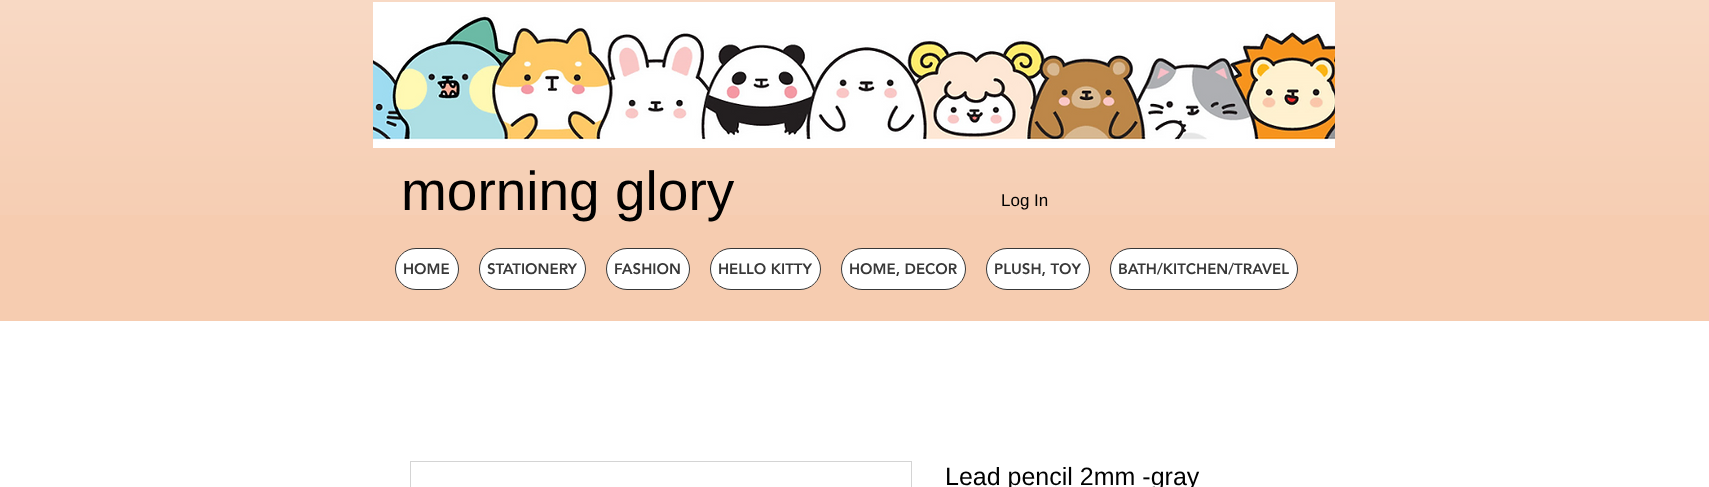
<?xml version="1.0" encoding="UTF-8"?>
<svg xmlns="http://www.w3.org/2000/svg" xmlns:xlink="http://www.w3.org/1999/xlink" width="1709" height="487">
  <rect width="100%" height="100%" fill="#ffffff" />
  <rect width="1709" height="321" fill="#f6ccb0" />
  <image x="0" y="0" width="1709" height="215" xlink:href="image1.png" />
  <image x="373" y="2" width="962" height="146" xlink:href="image2.png" />
  <rect x="395.5" y="248.5" width="63" height="41" rx="20.5" fill="#ffffff" stroke="#383838" />
  <rect x="479.5" y="248.5" width="106" height="41" rx="20.5" fill="#ffffff" stroke="#383838" />
  <rect x="606.5" y="248.5" width="83" height="41" rx="20.5" fill="#ffffff" stroke="#383838" />
  <rect x="710.5" y="248.5" width="110" height="41" rx="20.5" fill="#ffffff" stroke="#383838" />
  <rect x="841.5" y="248.5" width="124" height="41" rx="20.5" fill="#ffffff" stroke="#383838" />
  <rect x="986.5" y="248.5" width="103" height="41" rx="20.5" fill="#ffffff" stroke="#383838" />
  <rect x="1110.5" y="248.5" width="187" height="41" rx="20.5" fill="#ffffff" stroke="#383838" />
  <rect x="410.5" y="461.5" width="501" height="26" fill="none" stroke="#d4d4d4" />
  <text x="401" y="210" style="font-family: Liberation Sans; font-size: 55px; fill: #000000">morning glory</text>
  <text x="1001" y="206" style="font-family: Liberation Sans; font-size: 17px; fill: #000000">Log In</text>
  <text x="403" y="274" style="font-family: 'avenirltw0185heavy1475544'; font-size: 15px; font-weight: 900; fill: #383838">HOME</text>
  <text x="487" y="274" style="font-family: 'avenirltw0185heavy1475544'; font-size: 15px; font-weight: 900; fill: #383838">STATIONERY</text>
  <text x="614" y="274" style="font-family: 'avenirltw0185heavy1475544'; font-size: 15px; font-weight: 900; fill: #383838">FASHION</text>
  <text x="718" y="274" style="font-family: 'avenirltw0185heavy1475544'; font-size: 15px; font-weight: 900; fill: #383838">HELLO KITTY</text>
  <text x="849" y="274" style="font-family: 'avenirltw0185heavy1475544'; font-size: 15px; font-weight: 900; fill: #383838">HOME, DECOR</text>
  <text x="994" y="274" style="font-family: 'avenirltw0185heavy1475544'; font-size: 15px; font-weight: 900; fill: #383838">PLUSH, TOY</text>
  <text x="1118" y="274" style="font-family: 'avenirltw0185heavy1475544'; font-size: 15px; font-weight: 900; fill: #383838">BATH/KITCHEN/TRAVEL</text>
  <text x="945" y="485" style="font-family: Liberation Sans; font-size: 25px; fill: #000000">Lead pencil 2mm -gray</text>
</svg>
